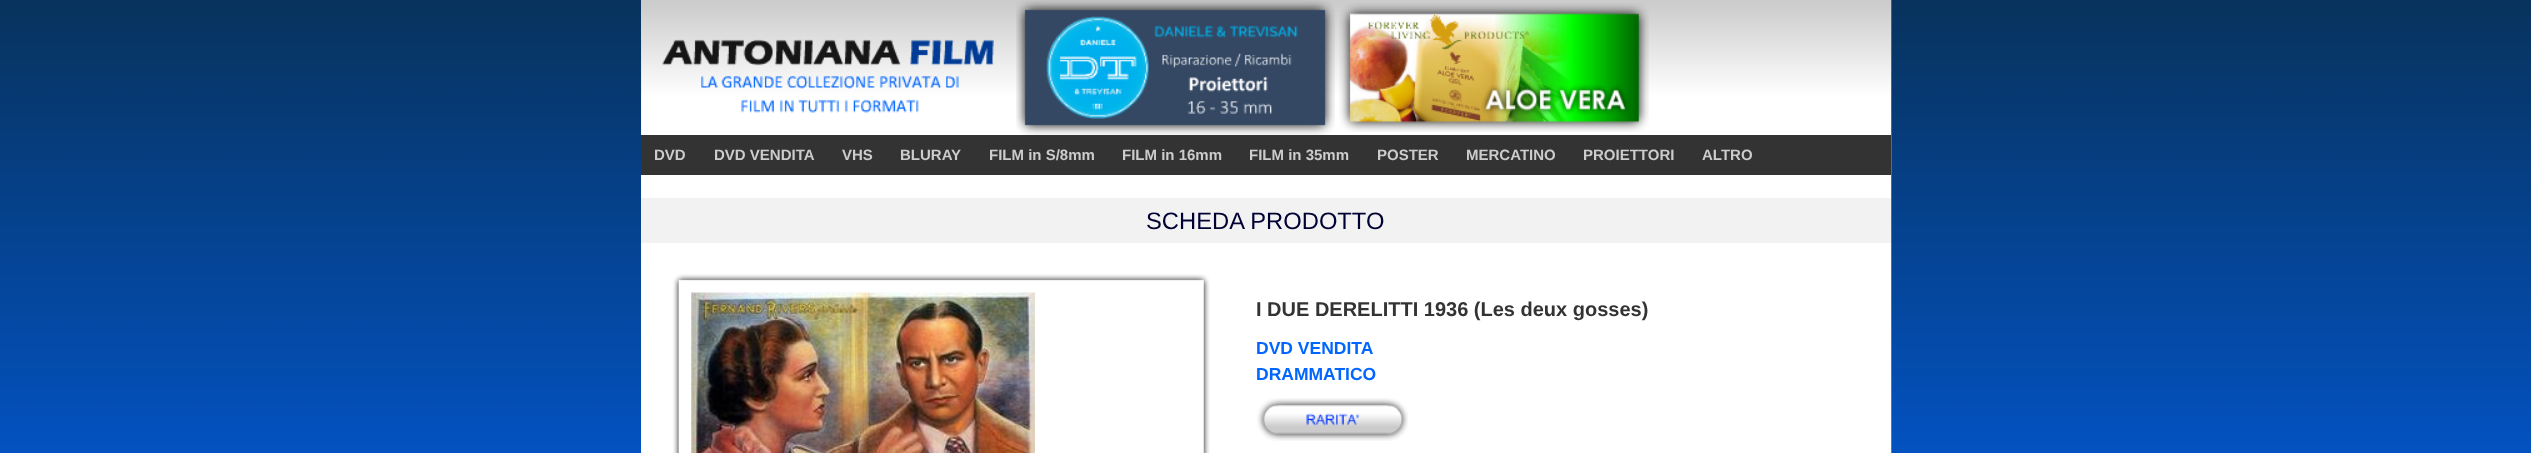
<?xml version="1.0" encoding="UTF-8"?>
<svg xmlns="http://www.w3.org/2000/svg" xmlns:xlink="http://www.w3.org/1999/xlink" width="2531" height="453">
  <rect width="100%" height="100%" fill="#ffffff" />
  <image x="0" y="0" width="642" height="453" xlink:href="image1.png" />
  <image x="641" y="0" width="1251" height="135" xlink:href="image2.png" />
  <image x="1016" y="0" width="319" height="135" xlink:href="image3.png" />
  <image x="1339" y="3" width="310" height="129" xlink:href="image4.png" />
  <image x="1891" y="0" width="640" height="453" xlink:href="image5.png" />
  <rect x="641" y="175" width="1" height="278" fill="#ffffff" />
  <rect x="641" y="135" width="1250" height="40" fill="#333333" />
  <rect x="641" y="198" width="1250" height="45" fill="#f2f2f2" />
  <image x="673" y="274" width="537" height="179" xlink:href="image6.png" />
  <image x="691" y="292" width="344" height="161" xlink:href="image7.png" />
  <image x="1257" y="398" width="151" height="43" xlink:href="image8.png" />
  <text x="654" y="160" style="font-family: Liberation Sans; font-size: 15px; font-weight: bold; fill: #cccccc">DVD</text>
  <text x="714" y="160" style="font-family: Liberation Sans; font-size: 15px; font-weight: bold; fill: #cccccc">DVD VENDITA</text>
  <text x="842" y="160" style="font-family: Liberation Sans; font-size: 15px; font-weight: bold; fill: #cccccc">VHS</text>
  <text x="900" y="160" style="font-family: Liberation Sans; font-size: 15px; font-weight: bold; fill: #cccccc">BLURAY</text>
  <text x="989" y="160" style="font-family: Liberation Sans; font-size: 15px; font-weight: bold; fill: #cccccc">FILM in S/8mm</text>
  <text x="1122" y="160" style="font-family: Liberation Sans; font-size: 15px; font-weight: bold; fill: #cccccc">FILM in 16mm</text>
  <text x="1249" y="160" style="font-family: Liberation Sans; font-size: 15px; font-weight: bold; fill: #cccccc">FILM in 35mm</text>
  <text x="1377" y="160" style="font-family: Liberation Sans; font-size: 15px; font-weight: bold; fill: #cccccc">POSTER</text>
  <text x="1466" y="160" style="font-family: Liberation Sans; font-size: 15px; font-weight: bold; fill: #cccccc">MERCATINO</text>
  <text x="1583" y="160" style="font-family: Liberation Sans; font-size: 15px; font-weight: bold; fill: #cccccc">PROIETTORI</text>
  <text x="1702" y="160" style="font-family: Liberation Sans; font-size: 15px; font-weight: bold; fill: #cccccc">ALTRO</text>
  <text x="1146" y="229" style="font-family: Liberation Sans; font-size: 23.75px; fill: #000033">SCHEDA PRODOTTO</text>
  <text x="1256" y="316" style="font-family: Liberation Sans; font-size: 20px; font-weight: bold; fill: #333333">I DUE DERELITTI 1936 (Les deux gosses)</text>
  <text x="1256" y="354" style="font-family: Liberation Sans; font-size: 17.5px; font-weight: bold; fill: #0066ff">DVD VENDITA</text>
  <text x="1256" y="380" style="font-family: Liberation Sans; font-size: 17.5px; font-weight: bold; fill: #0066ff">DRAMMATICO</text>
</svg>
